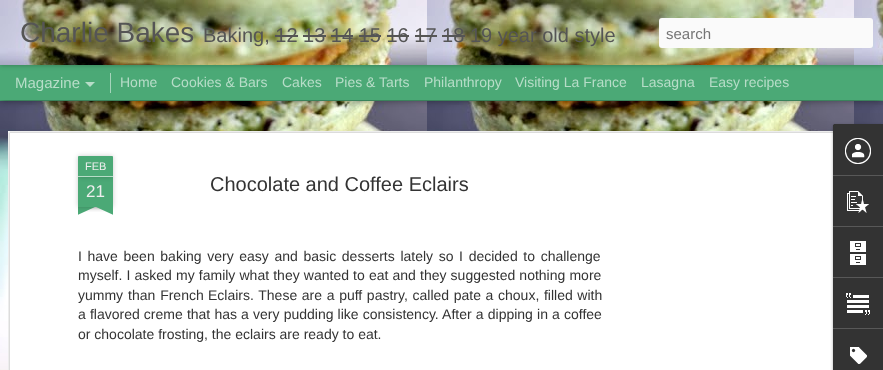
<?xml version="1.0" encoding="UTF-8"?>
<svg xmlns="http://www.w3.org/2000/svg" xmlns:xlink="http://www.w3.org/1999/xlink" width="883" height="370">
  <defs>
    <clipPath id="clip1"><rect x="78" y="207" width="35" height="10" /></clipPath>
    <clipPath id="clip2"><rect x="78" y="207" width="35" height="10" /></clipPath>
  </defs>
  <rect width="100%" height="100%" fill="#4ba976" />
  <image x="0" y="101" width="883" height="269" xlink:href="image2.png" />
  <rect y="65" width="883" height="35" fill="#000000" fill-opacity="0.5" filter="blur(4px)" />
  <rect y="65" width="883" height="35" fill="#4ba976" />
  <rect x="110" y="73" width="1" height="20" fill="#a5d4bb" />
  <rect width="883" height="65" fill="#000000" fill-opacity="0.3" filter="blur(2.5px)" />
  <image x="0" y="0" width="883" height="65" xlink:href="image1.png" />
  <rect x="275" y="35" width="23" height="2" fill="#555555" />
  <rect x="303" y="35" width="23" height="2" fill="#555555" />
  <rect x="331" y="35" width="22" height="2" fill="#555555" />
  <rect x="359" y="35" width="22" height="2" fill="#555555" />
  <rect x="387" y="35" width="22" height="2" fill="#555555" />
  <rect x="415" y="35" width="22" height="2" fill="#555555" />
  <rect x="442" y="35" width="23" height="2" fill="#555555" />
  <rect x="659" y="18" width="214" height="30" rx="3" fill="#fafafa" />
  <path d="M 85 82 h 10 l -5 5 z" fill="#b7ddc8" />
  <rect x="8" y="131" width="825" height="239" fill="#ffffff" />
  <image x="8" y="131" width="825" height="239" xlink:href="image3.png" />
  <rect x="78" y="177" width="35" height="30" fill="#000000" fill-opacity="0.2" filter="blur(2.5px)" />
  <rect x="78" y="177" width="35" height="30" fill="#4ba976" />
  <rect x="78" y="156" width="35" height="21" rx="1" fill="#000000" fill-opacity="0.2" filter="blur(2.5px)" />
  <path d="M 79 156 h 33 c 0.5 0 1 0.5 1 1 v 20 h -35 v -20 c 0 -0.5 0.5 -1 1 -1 z" fill="#4ba976" />
  <rect x="78" y="176" width="35" height="1" fill="#b7ddc8" />
  <g clip-path="url(#clip1)">
    <rect x="69" y="197" width="50" height="10" fill="#000000" fill-opacity="0.2" filter="blur(2.5px)" />
  </g>
  <g clip-path="url(#clip2)">
    <path d="M 69 208 l 46 -21 l 4 9 l -46 21 z" fill="#4ba976" />
  </g>
  <g clip-path="url(#clip1)">
    <rect x="72" y="197" width="50" height="10" fill="#000000" fill-opacity="0.2" filter="blur(2.5px)" />
  </g>
  <g clip-path="url(#clip2)">
    <path d="M 76 187 l 46 21 l -4 9 l -46 -21 z" fill="#4ba976" />
  </g>
  <rect x="833" y="125" width="50" height="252" rx="2" fill="#000000" fill-opacity="0.3" filter="blur(1.5px)" />
  <path d="M 835 124 h 48 v 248 h -48 c -1 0 -2 -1 -2 -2 v -244 c 0 -1 1 -2 2 -2 z" fill="#333333" />
  <path d="M 835 124 h 48 v 51 h -50 v -49 c 0 -1 1 -2 2 -2 z" fill="#333333" />
  <image x="845" y="138" width="26" height="26" xlink:href="image4.png" />
  <rect x="833" y="175" width="50" height="1" fill="#585858" />
  <image x="847" y="191" width="22" height="22" xlink:href="image5.png" />
  <rect x="833" y="226" width="50" height="1" fill="#585858" />
  <image x="850" y="241" width="16" height="24" xlink:href="image6.png" />
  <rect x="833" y="277" width="50" height="1" fill="#585858" />
  <image x="846" y="293" width="24" height="22" xlink:href="image7.png" />
  <rect x="833" y="328" width="50" height="1" fill="#585858" />
  <image x="850" y="347" width="17" height="17" xlink:href="image8.png" />
  <text x="20" y="42" style="font-family: Liberation Sans; font-size: 28px; fill: #555555">Charlie Bakes</text>
  <text x="203" y="42" style="font-family: Liberation Sans; font-size: 20px; fill: #555555">Baking, 12 13 14 15 16 17 18 19 year old style</text>
  <text x="666" y="39" style="font-family: Liberation Sans; font-size: 15px; fill: #757575">search</text>
  <text x="15" y="88" style="font-family: Liberation Sans; font-size: 15px; fill: #b7ddc8">Magazine</text>
  <text x="120" y="87" style="font-family: Liberation Sans; font-size: 14px; fill: #b7ddc8">Home</text>
  <text x="171" y="87" style="font-family: Liberation Sans; font-size: 14px; fill: #b7ddc8">Cookies &amp; Bars</text>
  <text x="282" y="87" style="font-family: Liberation Sans; font-size: 14px; fill: #b7ddc8">Cakes</text>
  <text x="335" y="87" style="font-family: Liberation Sans; font-size: 14px; fill: #b7ddc8">Pies &amp; Tarts</text>
  <text x="424" y="87" style="font-family: Liberation Sans; font-size: 14px; fill: #b7ddc8">Philanthropy</text>
  <text x="515" y="87" style="font-family: Liberation Sans; font-size: 14px; fill: #b7ddc8">Visiting La France</text>
  <text x="641" y="87" style="font-family: Liberation Sans; font-size: 14px; fill: #b7ddc8">Lasagna</text>
  <text x="709" y="87" style="font-family: Liberation Sans; font-size: 14px; fill: #b7ddc8">Easy recipes</text>
  <text x="85" y="170" style="font-family: Liberation Sans; font-size: 11px; fill: #eeeeee">FEB</text>
  <text x="86" y="197" style="font-family: Liberation Sans; font-size: 17px; fill: #eeeeee">21</text>
  <text x="210" y="191" style="font-family: Liberation Sans; font-size: 20px; fill: #333333">Chocolate and Coffee Eclairs</text>
  <text x="78" y="261" word-spacing="1.75" style="font-family: Liberation Sans; font-size: 14px; fill: #333333">I have been baking very easy and basic desserts lately so I decided to challenge</text>
  <text x="78" y="280" word-spacing="0.25" style="font-family: Liberation Sans; font-size: 14px; fill: #333333">myself. I asked my family what they wanted to eat and they suggested nothing more</text>
  <text x="78" y="300" word-spacing="1" style="font-family: Liberation Sans; font-size: 14px; fill: #333333">yummy than French</text>
  <text x="208" y="300" word-spacing="0.75" style="font-family: Liberation Sans; font-size: 14px; fill: #333333">Eclairs. These are a puff pastry, called pate a choux, filled with</text>
  <text x="78" y="319" word-spacing="0.25" style="font-family: Liberation Sans; font-size: 14px; fill: #333333">a flavored creme that has a very pudding like consistency. After a dipping in a coffee</text>
  <text x="78" y="339" style="font-family: Liberation Sans; font-size: 14px; fill: #333333">or chocolate frosting, the eclairs are ready to eat.</text>
</svg>
